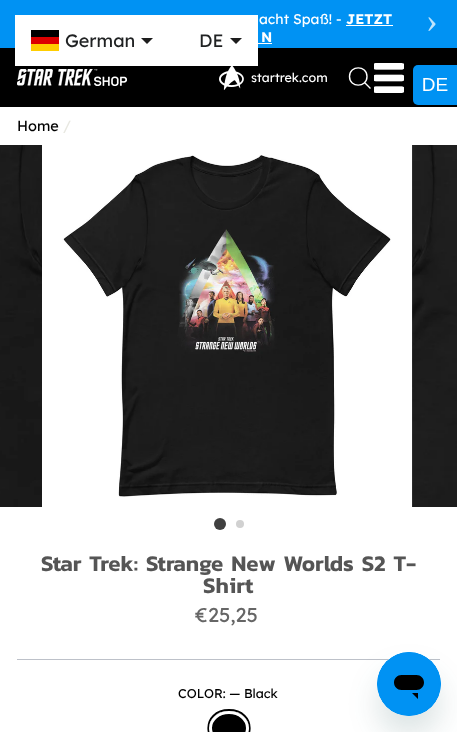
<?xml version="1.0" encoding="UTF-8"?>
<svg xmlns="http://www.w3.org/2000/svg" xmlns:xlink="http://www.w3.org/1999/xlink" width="457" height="732">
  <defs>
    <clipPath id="clip1"><path d="M 229 711 c 11 0 20 7.5 20 17 c 0 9.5 -9 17 -20 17 c -11 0 -20 -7.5 -20 -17 c 0 -9.5 9 -17 20 -17 z" /></clipPath>
  </defs>
  <rect width="100%" height="100%" fill="#ffffff" />
  <rect width="457" height="48" fill="#0092f3" />
  <rect x="346" y="25" width="47" height="1" fill="#ffffff" />
  <rect x="258" y="43" width="14" height="1" fill="#ffffff" />
  <rect y="48" width="457" height="59" fill="#000000" />
  <image x="17" y="69" width="110" height="17" xlink:href="image1.png" />
  <image x="219" y="66" width="25" height="24" xlink:href="image2.png" />
  <path d="M 367 76.5 c 0 11.5 -17.5 11.5 -17.5 0 c 0 -11.5 17.5 -11.5 17.5 0 z m 3.5 12 l -6 -6" fill="none" stroke="#ffffff" stroke-width="1.4" />
  <image x="374" y="63" width="30" height="30" xlink:href="image3.png" />
  <path d="M 423.5 75 c 0 -12.5 7.5 -12.5 7.5 0" fill="none" stroke="#ffffff" stroke-width="1.4" />
  <image x="0" y="145" width="42" height="362" xlink:href="image4.png" />
  <image x="62" y="155" width="329" height="342" xlink:href="image5.png" />
  <image x="412" y="145" width="45" height="362" xlink:href="image6.png" />
  <circle cx="220" cy="524" r="6" fill="#404040" />
  <circle cx="240" cy="524" r="4" fill="#d1d1d1" />
  <rect x="17" y="659" width="423" height="1" fill="#bdc1c9" />
  <path d="M 229 710 c 27.5 0 27.5 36 0 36 c -27.5 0 -27.5 -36 0 -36 z" fill="none" stroke="#000000" stroke-width="2" />
  <image x="209" y="711" width="40" height="21" xlink:href="image7.png" />
  <g clip-path="url(#clip1)">
    <path d="M 229 712 c 10.5 0 19 7 19 16 c 0 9 -8.5 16 -19 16 c -10.5 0 -19 -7 -19 -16 c 0 -9 8.5 -16 19 -16 z" fill="none" stroke="#ffffff" stroke-width="4" />
  </g>
  <rect x="15" y="15" width="243" height="51" fill="#ffffff" />
  <rect x="31" y="44" width="28" height="7" fill="#ffce00" />
  <rect x="31" y="30" width="28" height="7" fill="#000000" />
  <rect x="31" y="37" width="28" height="7" fill="#dd0000" />
  <path d="M 141 38 h 12 l -6 6 z" fill="#1d1d1d" />
  <path d="M 230 38 h 12 l -6 6 z" fill="#1d1d1d" />
  <image x="413" y="65" width="44" height="40" xlink:href="image8.png" />
  <rect x="377" y="672" width="64" height="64" rx="32" fill="#17494d" fill-opacity="0.15" filter="blur(15px)" />
  <image x="377" y="652" width="64" height="64" xlink:href="image9.png" />
  <text x="259" y="24" style="font-family: Lexend; font-size: 14px; fill: #ffffff">acht Spaß! -</text>
  <text x="346" y="24" style="font-family: Lexend; font-size: 14px; font-weight: bold; fill: #ffffff">JETZT</text>
  <text x="261" y="42" style="font-family: Lexend; font-size: 14px; font-weight: bold; fill: #ffffff">N</text>
  <text x="426" y="32" style="font-family: Liberation Serif; font-size: 35px; fill: #bfe4fc">›</text>
  <text x="251" y="82" style="font-family: Lexend; font-size: 12.5px; fill: #ffffff">startrek.com</text>
  <text x="17" y="131" style="font-family: Lexend; font-size: 14.5px; fill: #000000">Home</text>
  <text x="63" y="131" style="font-family: Lexend; font-size: 14.5px; fill: #e8e8e1">/</text>
  <text x="41" y="571" style="font-family: Kanit; font-size: 22.4px; font-weight: 600; fill: #555555">Star Trek: Strange New Worlds S2 T-</text>
  <text x="203" y="593" style="font-family: Kanit; font-size: 22.4px; font-weight: 600; fill: #555555">Shirt</text>
  <text x="195" y="622" style="font-family: Lexend; font-size: 20px; fill: #666666">€25,25</text>
  <text x="178" y="698" style="font-family: Lexend; font-size: 12.75px; fill: #000000">COLOR: — Black</text>
  <text x="65" y="47" style="font-family: Lexend; font-size: 18px; fill: #202223">German</text>
  <text x="199" y="47" style="font-family: Lexend; font-size: 18px; fill: #202223">DE</text>
</svg>
